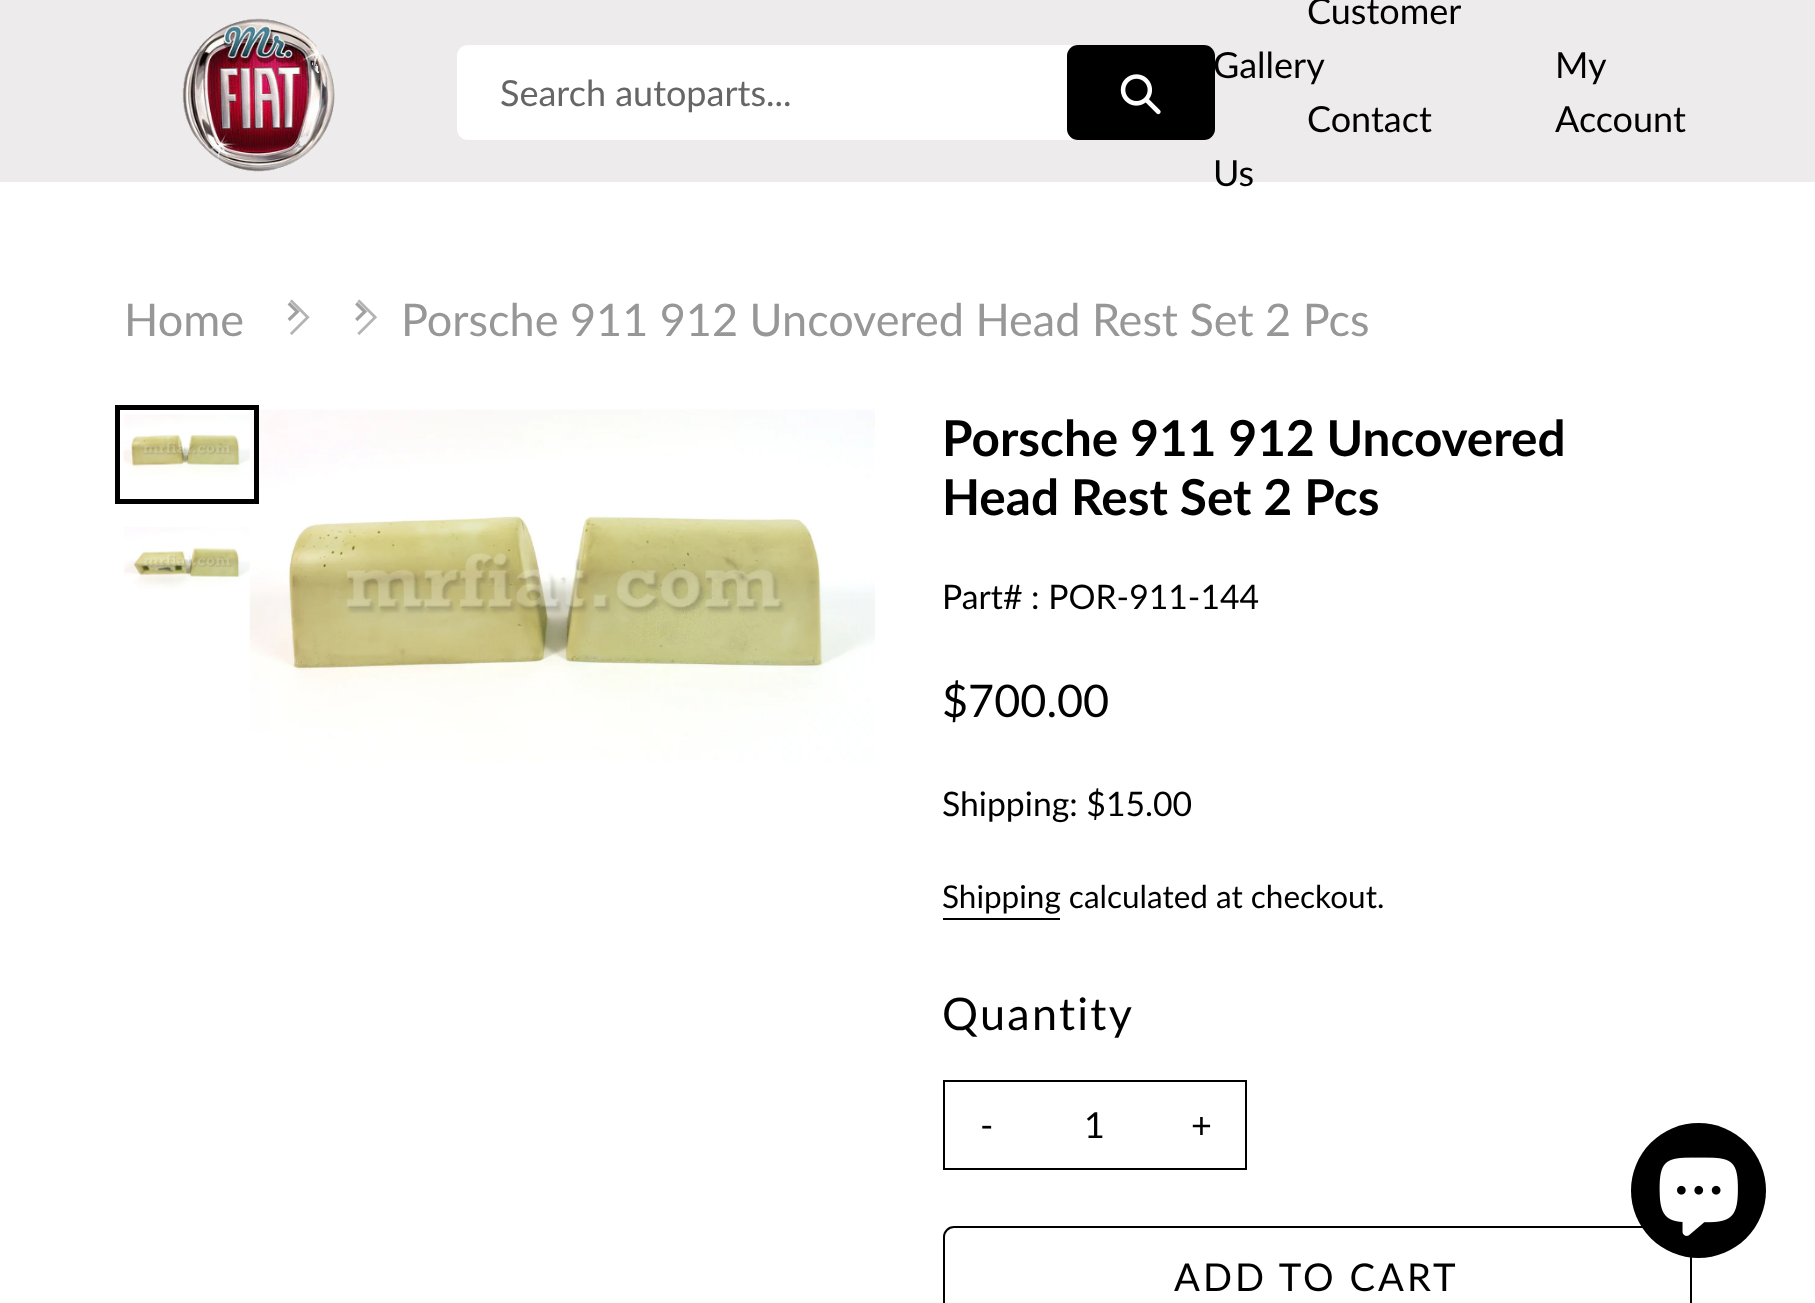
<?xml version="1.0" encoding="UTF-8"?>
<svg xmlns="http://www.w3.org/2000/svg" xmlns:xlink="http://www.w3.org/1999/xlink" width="1815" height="1303">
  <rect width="100%" height="100%" fill="#ffffff" />
  <rect width="1815" height="182" fill="#edebeb" />
  <image x="182" y="18" width="153" height="154" xlink:href="image1.png" />
  <rect x="457" y="45" width="756" height="95" rx="11" fill="#ffffff" />
  <rect x="1067" y="45" width="148" height="95" rx="11" fill="#000000" />
  <image x="1120" y="74" width="41" height="41" xlink:href="image2.png" />
  <image x="287" y="299" width="23" height="36" xlink:href="image3.png" />
  <image x="355" y="299" width="22" height="36" xlink:href="image4.png" />
  <image x="249" y="409" width="626" height="354" xlink:href="image7.png" />
  <rect x="117.5" y="407.5" width="139" height="94" fill="none" stroke="#000000" stroke-width="5" />
  <image x="123" y="414" width="127" height="63" xlink:href="image5.png" />
  <image x="123" y="527" width="127" height="62" xlink:href="image6.png" />
  <rect x="943" y="918" width="117" height="2" fill="#000000" />
  <rect x="944" y="1081" width="302" height="88" fill="none" stroke="#000000" stroke-width="2" />
  <rect x="944" y="1227" width="747" height="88" rx="10" fill="none" stroke="#000000" stroke-width="2" />
  <circle cx="1698.5" cy="1190.5" r="67.5" fill="#000000" />
  <image x="1659" y="1157" width="79" height="79" xlink:href="image8.png" />
  <text x="500" y="106" style="font-family: Lato; font-size: 36px; fill: #666666">Search autoparts...</text>
  <text x="1307" y="24" style="font-family: Lato; font-size: 36px; fill: #000000">Customer</text>
  <text x="1213" y="78" style="font-family: Lato; font-size: 36px; fill: #000000">Gallery</text>
  <text x="1307" y="132" style="font-family: Lato; font-size: 36px; fill: #000000">Contact</text>
  <text x="1213" y="186" style="font-family: Lato; font-size: 36px; fill: #000000">Us</text>
  <text x="1555" y="78" style="font-family: Lato; font-size: 36px; fill: #000000">My</text>
  <text x="1555" y="132" style="font-family: Lato; font-size: 36px; fill: #000000">Account</text>
  <text x="124" y="336" style="font-family: Lato; font-size: 45px; fill: #979797">Home</text>
  <text x="401" y="336" style="font-family: Lato; font-size: 45px; fill: #979797">Porsche 911 912 Uncovered Head Rest Set 2 Pcs</text>
  <text x="942" y="456" style="font-family: Lato; font-size: 49.5px; font-weight: bold; fill: #000000">Porsche 911 912 Uncovered</text>
  <text x="942" y="515" style="font-family: Lato; font-size: 49.5px; font-weight: bold; fill: #000000">Head Rest Set 2 Pcs</text>
  <text x="942" y="609" style="font-family: Lato; font-size: 33.75px; fill: #000000">Part# : POR-911-144</text>
  <text x="942" y="717" style="font-family: Lato; font-size: 45px; fill: #000000">$700.00</text>
  <text x="942" y="816" style="font-family: Lato; font-size: 33.75px; fill: #000000">Shipping: $15.00</text>
  <text x="942" y="908" style="font-family: Lato; font-size: 31.5px; fill: #000000">Shipping calculated at checkout.</text>
  <text x="942" y="1030" style="font-family: Lato; font-size: 45px; letter-spacing: 2.25px; fill: #000000">Quantity</text>
  <text x="980" y="1138" style="font-family: Lato; font-size: 36px; fill: #000000">-</text>
  <text x="1084" y="1138" style="font-family: Lato; font-size: 36px; fill: #000000">1</text>
  <text x="1191" y="1138" style="font-family: Lato; font-size: 36px; fill: #000000">+</text>
  <text x="1174" y="1291" style="font-family: Lato; font-size: 38.25px; letter-spacing: 3px; fill: #000000">ADD TO CART</text>
</svg>
